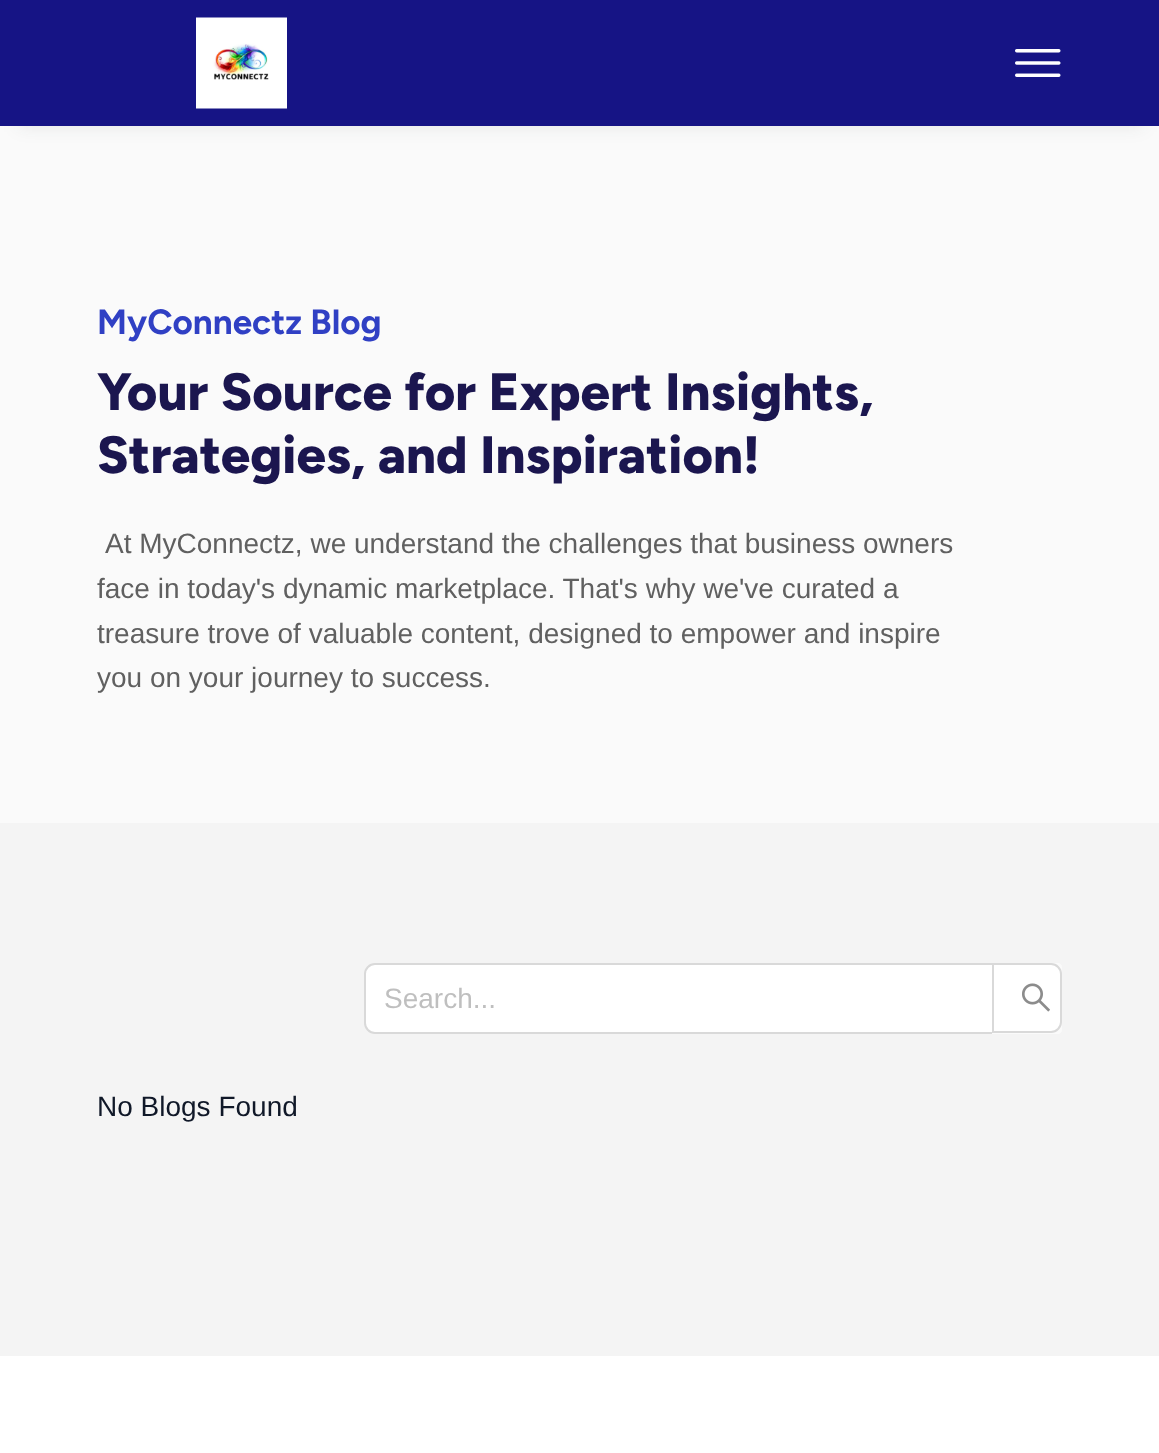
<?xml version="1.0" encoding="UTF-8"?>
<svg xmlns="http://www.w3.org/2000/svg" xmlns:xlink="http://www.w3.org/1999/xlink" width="1159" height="1453">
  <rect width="100%" height="100%" fill="#ffffff" />
  <rect y="126" width="1159" height="697" fill="#fafafa" />
  <rect x="18" y="35" width="1125" height="91" fill="#212326" fill-opacity="0.1" filter="blur(9px)" />
  <rect width="1159" height="126" fill="#161485" />
  <image x="196" y="17" width="91" height="92" xlink:href="image1.png" />
  <image x="1015" y="49" width="46" height="28" xlink:href="image2.png" />
  <rect y="823" width="1159" height="533" fill="#f4f4f4" />
  <path d="M 375 964 h 618 v 69 h -618 c -5.5 0 -10 -4.5 -10 -10 v -49 c 0 -5.5 4.5 -10 10 -10 z" fill="#ffffff" stroke="#d9d9d9" stroke-width="2" />
  <path d="M 992 963 h 66 c 2 0 4 2 4 4 v 63 c 0 2 -2 4 -4 4 h -66 z" fill="#fafafa" />
  <path d="M 993 964 h 58 c 5.5 0 10 4.5 10 10 v 48 c 0 5.5 -4.5 10 -10 10 h -58 z" fill="#ffffff" stroke="#d9d9d9" stroke-width="2" />
  <image x="1022" y="983" width="28" height="29" xlink:href="image3.png" />
  <text x="97" y="334" style="font-family: Figtree; font-size: 35px; font-weight: bold; fill: #3040c4">MyConnectz Blog</text>
  <text x="97" y="410" style="font-family: Figtree; font-size: 52.5px; font-weight: 800; fill: #1b164f">Your Source for Expert Insights,</text>
  <text x="97" y="473" style="font-family: Figtree; font-size: 52.5px; font-weight: 800; fill: #1b164f">Strategies, and Inspiration!</text>
  <text x="105" y="553" style="font-family: Liberation Sans; font-size: 28px; fill: #606060">At MyConnectz, we understand the challenges that business owners</text>
  <text x="97" y="598" style="font-family: Liberation Sans; font-size: 28px; fill: #606060">face in today's dynamic marketplace. That's why we've curated a</text>
  <text x="97" y="643" style="font-family: Liberation Sans; font-size: 28px; fill: #606060">treasure trove of valuable content, designed to empower and inspire</text>
  <text x="97" y="687" style="font-family: Liberation Sans; font-size: 28px; fill: #606060">you on your journey to success.</text>
  <text x="384" y="1008" style="font-family: Liberation Sans; font-size: 28px; fill: #bfbfbf">Search...</text>
  <text x="97" y="1116" style="font-family: Liberation Sans; font-size: 28px; fill: #101828">No Blogs Found</text>
</svg>
